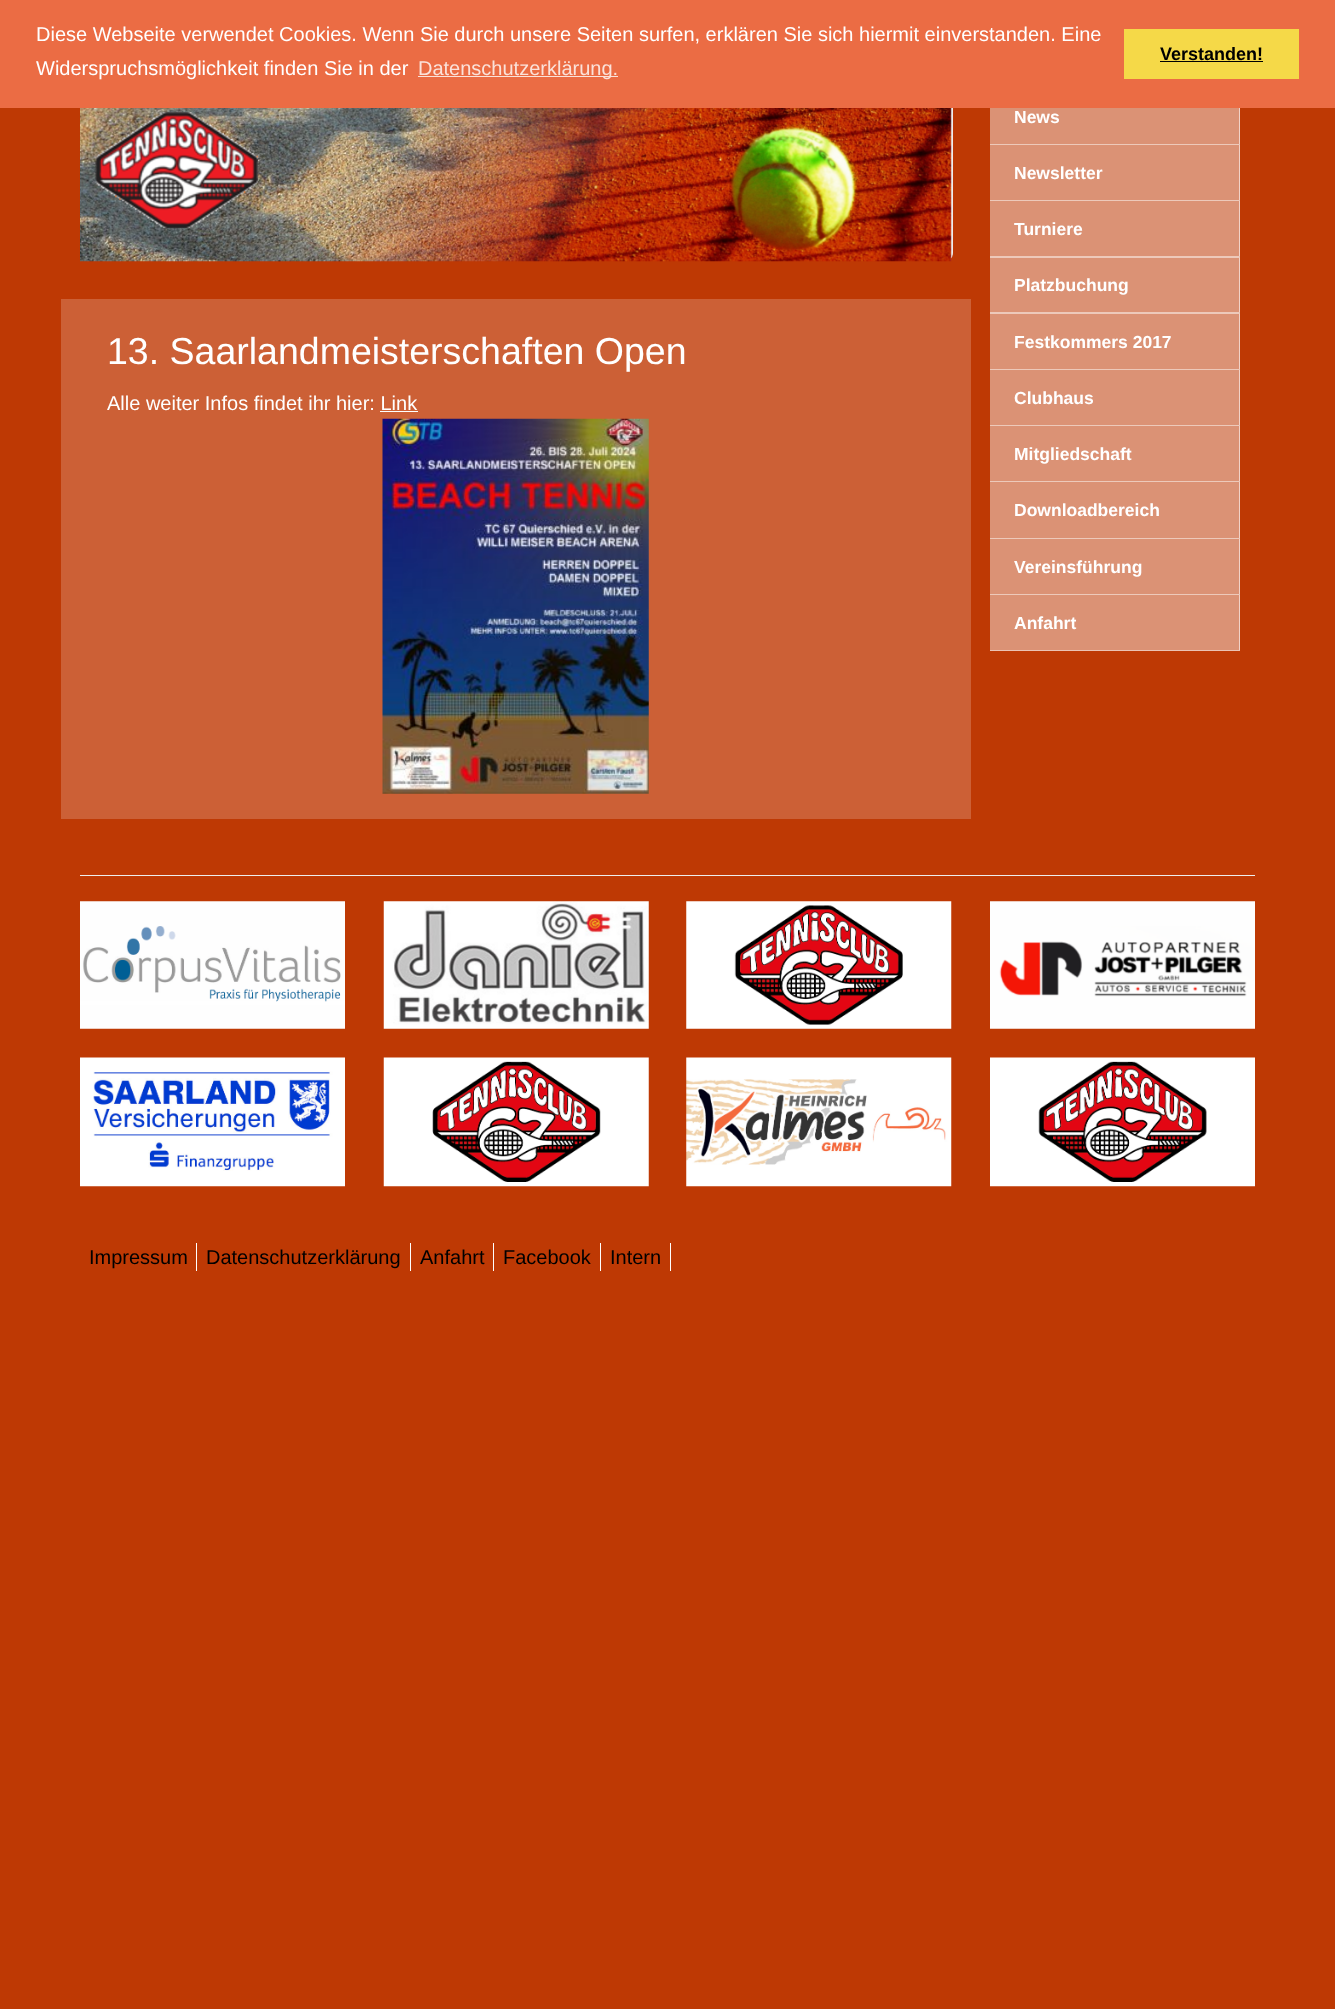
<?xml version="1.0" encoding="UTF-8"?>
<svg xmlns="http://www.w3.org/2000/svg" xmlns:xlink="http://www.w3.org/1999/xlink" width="1335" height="2009">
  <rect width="100%" height="100%" fill="#be3904" />
  <rect x="80" y="88" width="873" height="173" rx="8" fill="#eeeeee" />
  <rect x="990" y="108" width="250" height="543" fill="#db9275" />
  <path d="M 1240 88 v 56 h -1 v -55 z" fill="#ffffff" fill-opacity="0.6" />
  <rect width="1335" height="108" fill="#eb6c44" />
  <rect x="418" y="76" width="200" height="1" fill="#fbe2da" />
  <rect x="1124" y="29" width="175" height="50" fill="#f5d948" />
  <rect x="1160" y="61" width="103" height="1" fill="#000000" />
  <image x="80" y="108" width="872" height="154" xlink:href="image1.png" />
  <rect x="61" y="299" width="910" height="520" fill="#cc6036" />
  <rect x="380" y="411" width="38" height="1" fill="#ffffff" />
  <image x="382" y="418" width="267" height="376" xlink:href="image2.png" />
  <path d="M 990 144 h 250 l -1 1 h -249 z" fill="#edc9ba" />
  <path d="M 1240 144 v 56 h -1 v -55 z" fill="#ffffff" fill-opacity="0.6" />
  <path d="M 990 200 h 250 l -1 1 h -249 z" fill="#edc9ba" />
  <path d="M 1240 200 v 56 h -1 v -55 z" fill="#ffffff" fill-opacity="0.6" />
  <path d="M 990 256 h 250 l -1 2 h -249 z" fill="#edc9ba" />
  <path d="M 1240 256 v 56 h -1 v -54 z" fill="#ffffff" fill-opacity="0.6" />
  <path d="M 990 312 h 250 l -1 2 h -249 z" fill="#edc9ba" />
  <path d="M 1240 312 v 57 h -1 v -55 z" fill="#ffffff" fill-opacity="0.6" />
  <path d="M 990 369 h 250 l -1 1 h -249 z" fill="#edc9ba" />
  <path d="M 1240 369 v 56 h -1 v -55 z" fill="#ffffff" fill-opacity="0.6" />
  <path d="M 990 425 h 250 l -1 1 h -249 z" fill="#edc9ba" />
  <path d="M 1240 425 v 56 h -1 v -55 z" fill="#ffffff" fill-opacity="0.6" />
  <path d="M 990 481 h 250 l -1 1 h -249 z" fill="#edc9ba" />
  <path d="M 1240 481 v 57 h -1 v -56 z" fill="#ffffff" fill-opacity="0.6" />
  <path d="M 990 538 h 250 l -1 1 h -249 z" fill="#edc9ba" />
  <path d="M 1240 538 v 56 h -1 v -55 z" fill="#ffffff" fill-opacity="0.6" />
  <path d="M 990 594 h 250 l -1 1 h -249 z" fill="#edc9ba" />
  <path d="M 1240 594 v 57 l -1 -1 v -55 z" fill="#ffffff" fill-opacity="0.6" />
  <path d="M 1240 651 h -250 v -1 h 249 z" fill="#ffffff" fill-opacity="0.45" />
  <rect x="80" y="875" width="1175" height="1" fill="#eeeeee" />
  <image x="80" y="901" width="265" height="128" xlink:href="image3.png" />
  <image x="383" y="901" width="266" height="128" xlink:href="image4.png" />
  <image x="686" y="901" width="266" height="128" xlink:href="image5.png" />
  <image x="990" y="901" width="265" height="128" xlink:href="image6.png" />
  <image x="80" y="1057" width="265" height="130" xlink:href="image7.png" />
  <image x="383" y="1057" width="266" height="130" xlink:href="image8.png" />
  <image x="686" y="1057" width="266" height="130" xlink:href="image9.png" />
  <image x="990" y="1057" width="265" height="130" xlink:href="image10.png" />
  <rect x="196" y="1243" width="1" height="28" fill="#ffffff" />
  <rect x="410" y="1243" width="1" height="28" fill="#ffffff" />
  <rect x="493" y="1243" width="1" height="28" fill="#ffffff" />
  <rect x="600" y="1243" width="1" height="28" fill="#ffffff" />
  <rect x="670" y="1243" width="1" height="28" fill="#ffffff" />
  <text x="36" y="41" style="font-family: Liberation Sans; font-size: 20px; fill: #ffffff">Diese Webseite verwendet Cookies. Wenn Sie durch unsere Seiten surfen, erklären Sie sich hiermit einverstanden. Eine</text>
  <text x="36" y="75" style="font-family: Liberation Sans; font-size: 20px; fill: #ffffff">Widerspruchsmöglichkeit finden Sie in der</text>
  <text x="418" y="75" style="font-family: Liberation Sans; font-size: 20px; fill: #fbe2da">Datenschutzerklärung.</text>
  <text x="1160" y="60" style="font-family: Liberation Sans; font-size: 18px; font-weight: bold; fill: #000000">Verstanden!</text>
  <text x="107" y="364" style="font-family: Liberation Sans; font-size: 37.5px; fill: #ffffff">13. Saarlandmeisterschaften Open</text>
  <text x="107" y="410" style="font-family: Liberation Sans; font-size: 20px; fill: #ffffff">Alle weiter Infos findet ihr hier: Link</text>
  <text x="1014" y="123" style="font-family: Liberation Sans; font-size: 17.5px; font-weight: bold; fill: #ffffff">News</text>
  <text x="1014" y="179" style="font-family: Liberation Sans; font-size: 17.5px; font-weight: bold; fill: #ffffff">Newsletter</text>
  <text x="1014" y="235" style="font-family: Liberation Sans; font-size: 17.5px; font-weight: bold; fill: #ffffff">Turniere</text>
  <text x="1014" y="291" style="font-family: Liberation Sans; font-size: 17.5px; font-weight: bold; fill: #ffffff">Platzbuchung</text>
  <text x="1014" y="348" style="font-family: Liberation Sans; font-size: 17.5px; font-weight: bold; fill: #ffffff">Festkommers 2017</text>
  <text x="1014" y="404" style="font-family: Liberation Sans; font-size: 17.5px; font-weight: bold; fill: #ffffff">Clubhaus</text>
  <text x="1014" y="460" style="font-family: Liberation Sans; font-size: 17.5px; font-weight: bold; fill: #ffffff">Mitgliedschaft</text>
  <text x="1014" y="516" style="font-family: Liberation Sans; font-size: 17.5px; font-weight: bold; fill: #ffffff">Downloadbereich</text>
  <text x="1014" y="573" style="font-family: Liberation Sans; font-size: 17.5px; font-weight: bold; fill: #ffffff">Vereinsführung</text>
  <text x="1014" y="629" style="font-family: Liberation Sans; font-size: 17.5px; font-weight: bold; fill: #ffffff">Anfahrt</text>
  <text x="89" y="1264" style="font-family: Liberation Sans; font-size: 20px; fill: #000000">Impressum</text>
  <text x="206" y="1264" style="font-family: Liberation Sans; font-size: 20px; fill: #000000">Datenschutzerklärung</text>
  <text x="420" y="1264" style="font-family: Liberation Sans; font-size: 20px; fill: #000000">Anfahrt</text>
  <text x="503" y="1264" style="font-family: Liberation Sans; font-size: 20px; fill: #000000">Facebook</text>
  <text x="610" y="1264" style="font-family: Liberation Sans; font-size: 20px; fill: #000000">Intern</text>
</svg>
